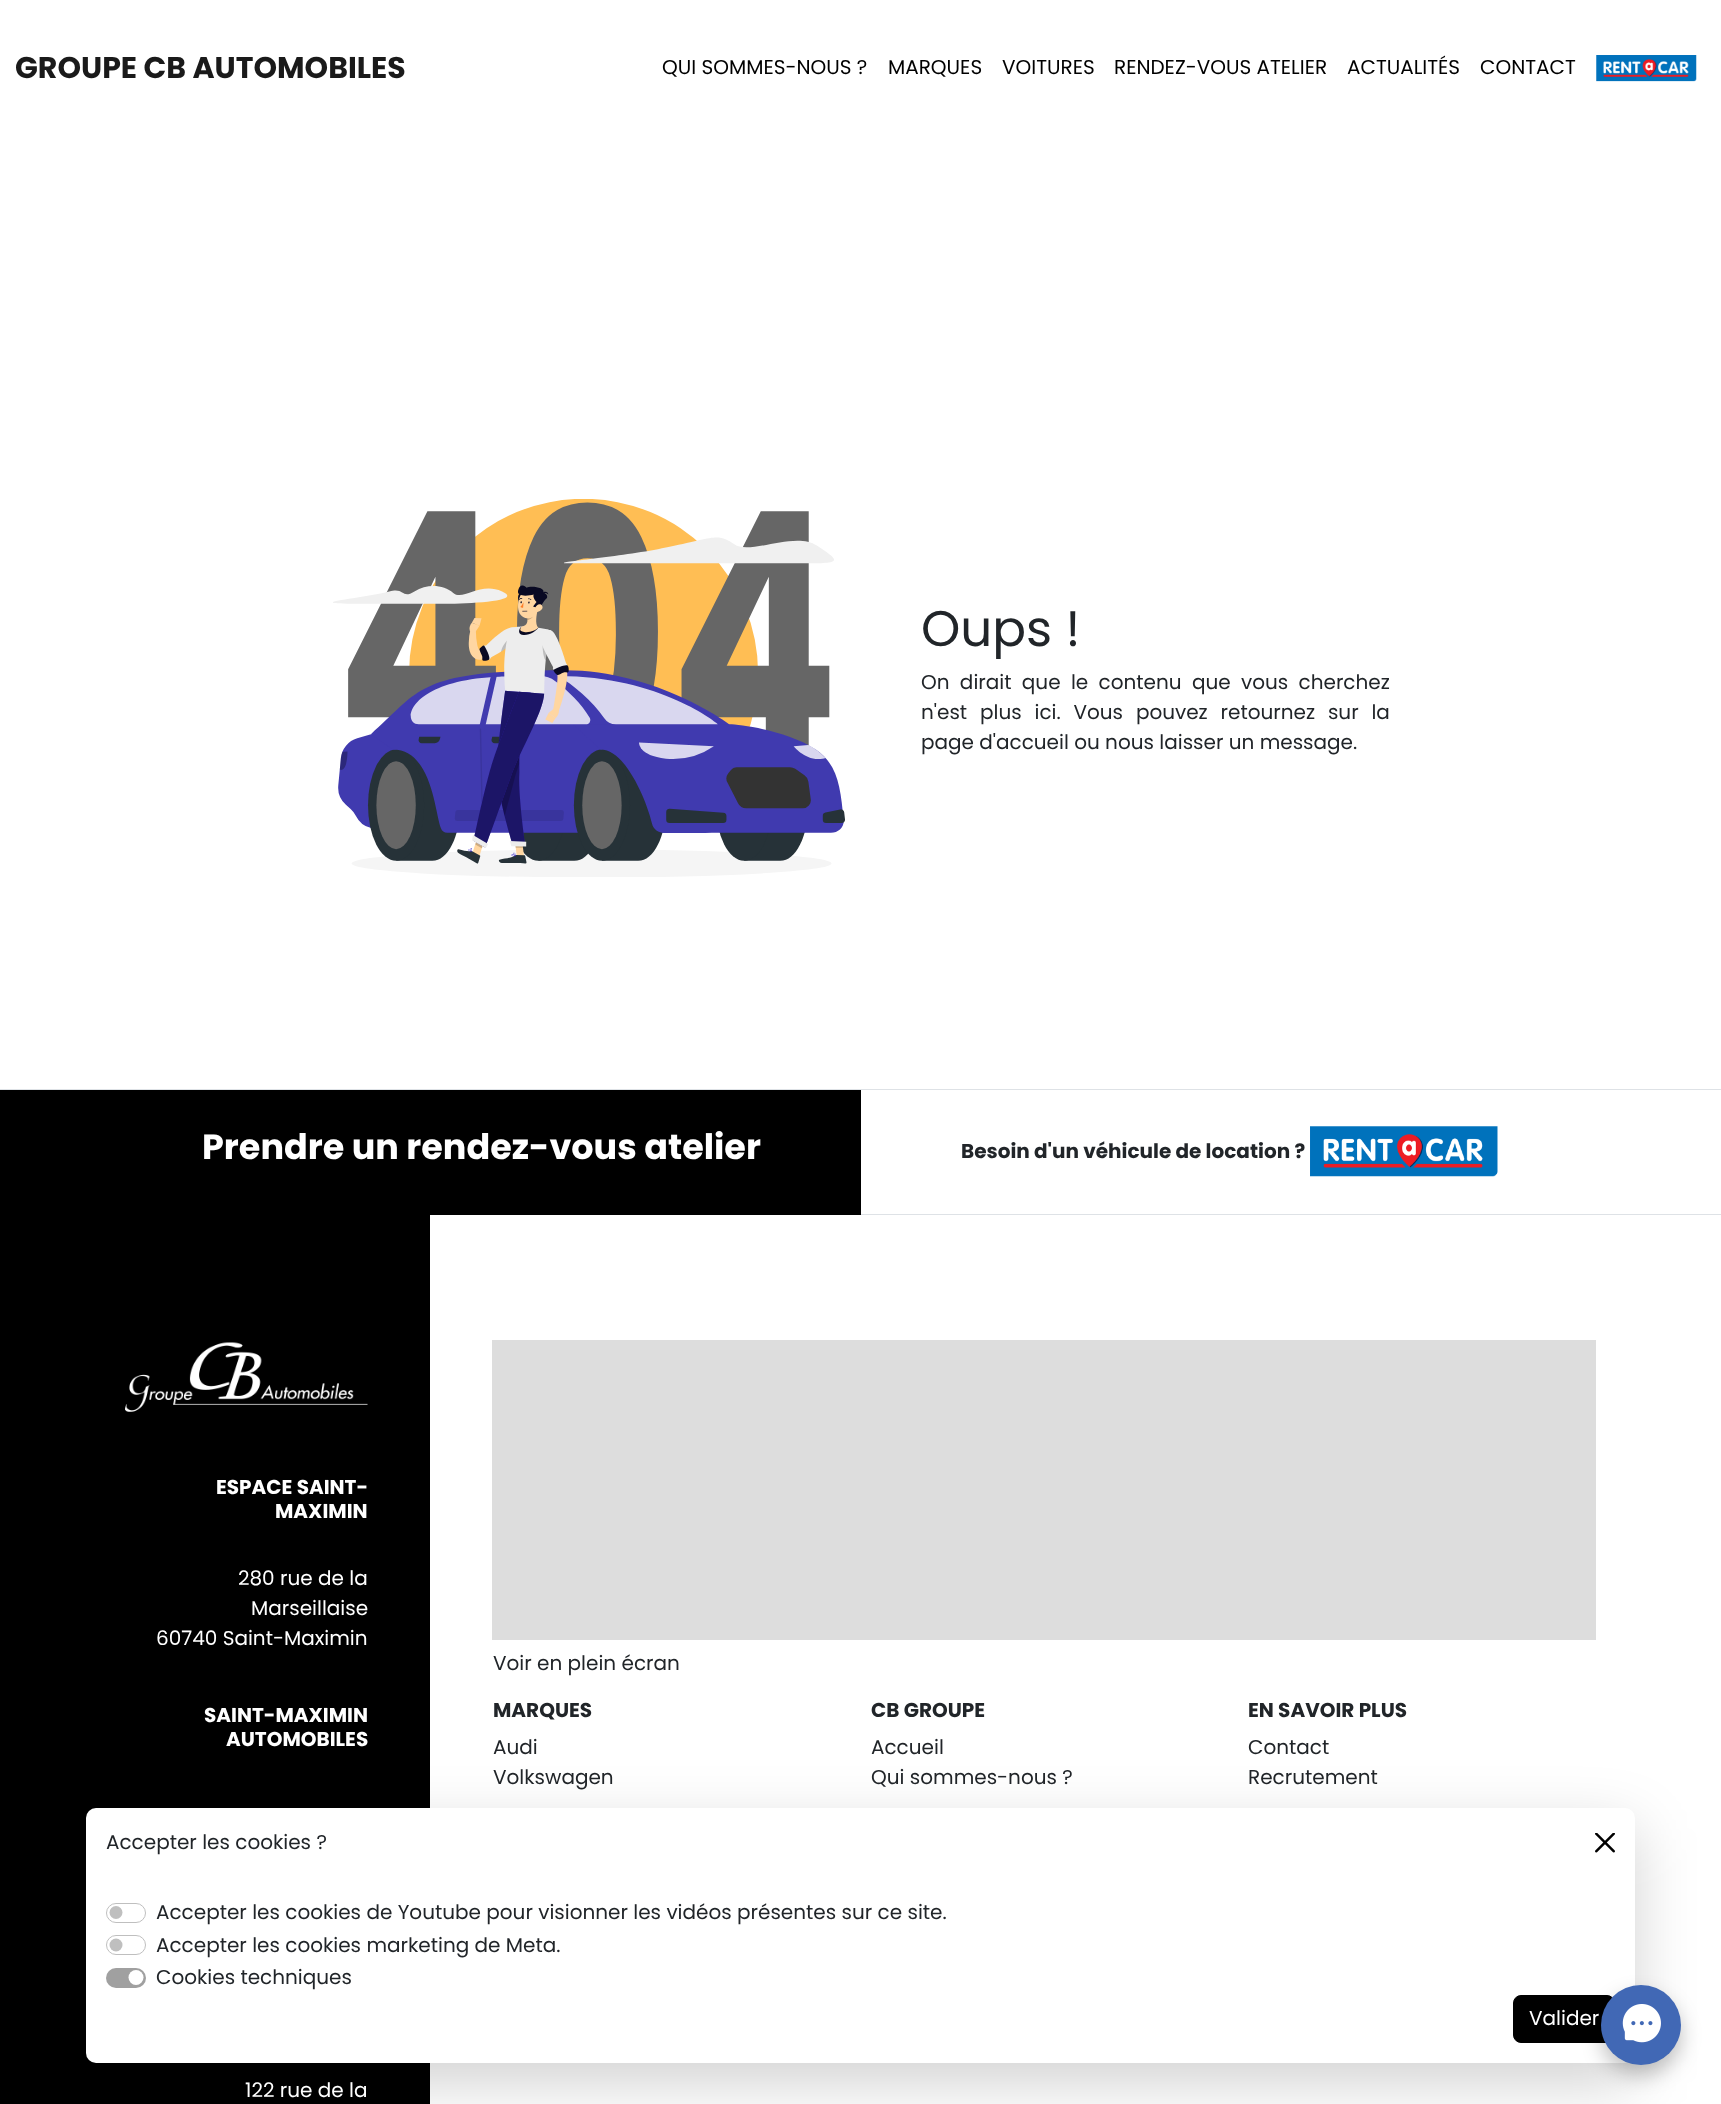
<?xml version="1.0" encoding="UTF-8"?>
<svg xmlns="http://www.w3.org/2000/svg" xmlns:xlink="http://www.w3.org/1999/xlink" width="1721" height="2104">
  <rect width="100%" height="100%" fill="#ffffff" />
  <image x="1596" y="55" width="101" height="27" xlink:href="image1.png" />
  <rect y="1089" width="1721" height="1" fill="#dee2e6" />
  <image x="333" y="499" width="512" height="378" xlink:href="image2.png" />
  <rect y="1090" width="861" height="125" fill="#000000" />
  <rect x="861" y="1214" width="860" height="1" fill="#dee2e6" />
  <image x="1310" y="1126" width="188" height="51" xlink:href="image3.png" />
  <rect y="1215" width="430" height="889" fill="#000000" />
  <image x="125" y="1342" width="243" height="70" xlink:href="image4.png" />
  <rect x="492" y="1340" width="1104" height="300" fill="#dddddd" />
  <rect x="86" y="1828" width="1549" height="255" rx="10" fill="#000000" fill-opacity="0.18" filter="blur(30px)" />
  <rect x="86" y="1808" width="1549" height="255" rx="10" fill="#ffffff" />
  <image x="1595" y="1833" width="20" height="20" xlink:href="image5.png" />
  <circle cx="116" cy="1912.5" r="6.5" fill="#bfbfbf" />
  <rect x="106.5" y="1903.5" width="39" height="19" rx="9.5" fill="none" stroke="#bfbfbf" />
  <circle cx="116" cy="1945" r="6.5" fill="#bfbfbf" />
  <rect x="106.5" y="1935.5" width="39" height="19" rx="9.5" fill="none" stroke="#bfbfbf" />
  <rect x="106" y="1968" width="40" height="20" rx="10" fill="#a0a0a0" />
  <circle cx="136" cy="1977.5" r="7.5" fill="#ffffff" />
  <rect x="1513.5" y="1995.5" width="101" height="47" rx="7.5" fill="#000000" stroke="#000000" />
  <rect x="1601" y="1995" width="80" height="80" rx="40" fill="#000000" fill-opacity="0.24" filter="blur(10px)" />
  <circle cx="1641" cy="2025" r="40" fill="#4168b5" />
  <image x="1622" y="2004" width="39" height="39" xlink:href="image6.png" />
  <text x="15" y="78" style="font-family: Poppins; font-size: 30px; font-weight: bold; fill: #1a1a1a">GROUPE CB AUTOMOBILES</text>
  <text x="662" y="74" style="font-family: Poppins; font-size: 20px; fill: #000000">QUI SOMMES-NOUS ?</text>
  <text x="888" y="74" style="font-family: Poppins; font-size: 20px; fill: #000000">MARQUES</text>
  <text x="1002" y="74" style="font-family: Poppins; font-size: 20px; fill: #000000">VOITURES</text>
  <text x="1114" y="74" style="font-family: Poppins; font-size: 20px; fill: #000000">RENDEZ-VOUS ATELIER</text>
  <text x="1347" y="74" style="font-family: Poppins; font-size: 20px; fill: #000000">ACTUALITÉS</text>
  <text x="1480" y="74" style="font-family: Poppins; font-size: 20px; fill: #000000">CONTACT</text>
  <text x="921" y="646" style="font-family: Poppins; font-size: 50px; fill: #212529">Oups !</text>
  <text x="921" y="689" word-spacing="5" style="font-family: Poppins; font-size: 20px; fill: #212529">On dirait que le contenu que vous cherchez</text>
  <text x="921" y="719" word-spacing="7.5" style="font-family: Poppins; font-size: 20px; fill: #212529">n'est plus ici. Vous pouvez retournez sur la</text>
  <text x="921" y="749" style="font-family: Poppins; font-size: 20px; fill: #212529">page d'accueil ou nous laisser un message.</text>
  <text x="202" y="1159" style="font-family: Poppins; font-size: 35px; font-weight: bold; fill: #ffffff">Prendre un rendez-vous atelier</text>
  <text x="961" y="1158" style="font-family: Poppins; font-size: 20px; font-weight: bold; fill: #212529">Besoin d'un véhicule de location ?</text>
  <text x="216" y="1494" style="font-family: Poppins; font-size: 20px; font-weight: bold; fill: #ffffff">ESPACE SAINT-</text>
  <text x="275" y="1518" style="font-family: Poppins; font-size: 20px; font-weight: bold; fill: #ffffff">MAXIMIN</text>
  <text x="238" y="1585" style="font-family: Poppins; font-size: 20px; fill: #ffffff">280 rue de la</text>
  <text x="251" y="1615" style="font-family: Poppins; font-size: 20px; fill: #ffffff">Marseillaise</text>
  <text x="156" y="1645" style="font-family: Poppins; font-size: 20px; fill: #ffffff">60740 Saint-Maximin</text>
  <text x="204" y="1722" style="font-family: Poppins; font-size: 20px; font-weight: bold; fill: #ffffff">SAINT-MAXIMIN</text>
  <text x="226" y="1746" style="font-family: Poppins; font-size: 20px; font-weight: bold; fill: #ffffff">AUTOMOBILES</text>
  <text x="245" y="2097" style="font-family: Poppins; font-size: 20px; fill: #ffffff">122 rue de la</text>
  <text x="493" y="1670" style="font-family: Poppins; font-size: 20px; fill: #212529">Voir en plein écran</text>
  <text x="493" y="1717" style="font-family: Poppins; font-size: 20px; font-weight: bold; fill: #212529">MARQUES</text>
  <text x="493" y="1754" style="font-family: Poppins; font-size: 20px; fill: #212529">Audi</text>
  <text x="493" y="1784" style="font-family: Poppins; font-size: 20px; fill: #212529">Volkswagen</text>
  <text x="871" y="1717" style="font-family: Poppins; font-size: 20px; font-weight: bold; fill: #212529">CB GROUPE</text>
  <text x="871" y="1754" style="font-family: Poppins; font-size: 20px; fill: #212529">Accueil</text>
  <text x="871" y="1784" style="font-family: Poppins; font-size: 20px; fill: #212529">Qui sommes-nous ?</text>
  <text x="1248" y="1717" style="font-family: Poppins; font-size: 20px; font-weight: bold; fill: #212529">EN SAVOIR PLUS</text>
  <text x="1248" y="1754" style="font-family: Poppins; font-size: 20px; fill: #212529">Contact</text>
  <text x="1248" y="1784" style="font-family: Poppins; font-size: 20px; fill: #212529">Recrutement</text>
  <text x="106" y="1849" style="font-family: Poppins; font-size: 20px; fill: #212529">Accepter les cookies ?</text>
  <text x="156" y="1919" style="font-family: Poppins; font-size: 20px; fill: #212529">Accepter les cookies de Youtube pour visionner les vidéos présentes sur ce site.</text>
  <text x="156" y="1952" style="font-family: Poppins; font-size: 20px; fill: #212529">Accepter les cookies marketing de Meta.</text>
  <text x="156" y="1984" style="font-family: Poppins; font-size: 20px; fill: #212529">Cookies techniques</text>
  <text x="1529" y="2025" style="font-family: Poppins; font-size: 20px; fill: #ffffff">Valider</text>
</svg>
